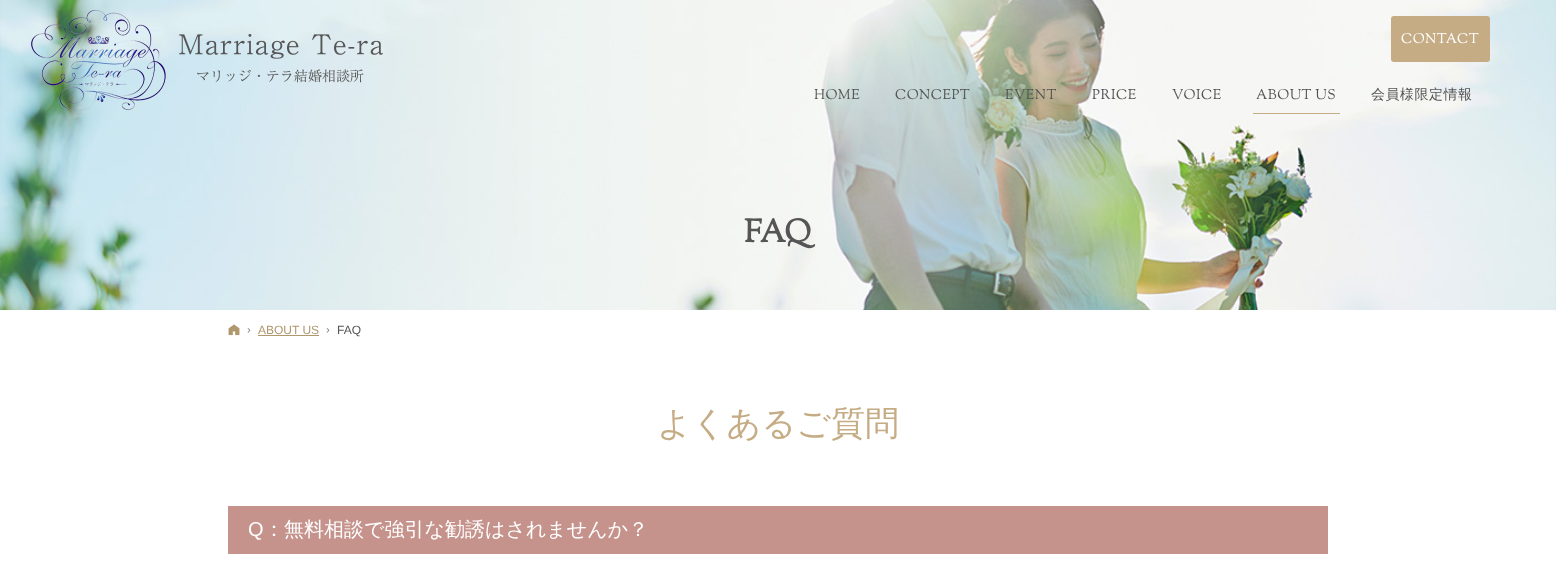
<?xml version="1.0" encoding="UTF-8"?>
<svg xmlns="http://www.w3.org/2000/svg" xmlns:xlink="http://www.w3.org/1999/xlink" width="1556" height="572">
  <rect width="100%" height="100%" fill="#ffffff" />
  <image x="0" y="0" width="1556" height="310" xlink:href="image1.png" />
  <rect x="1391" y="16" width="99" height="46" rx="3" fill="#c5ac84" />
  <rect x="1253" y="113" width="87" height="1" fill="#c5ac84" />
  <image x="31" y="10" width="352" height="101" xlink:href="image2.png" />
  <image x="228" y="324" width="12" height="12" xlink:href="image3.png" />
  <image x="247" y="328" width="4" height="5" xlink:href="image4.png" />
  <rect x="258" y="335" width="61" height="1" fill="#b1976e" />
  <image x="326" y="328" width="4" height="5" xlink:href="image4.png" />
  <rect x="228" y="506" width="1100" height="48" fill="#c5938c" />
  <text x="1401" y="43" style="font-family: Sorts Mill Goudy; font-size: 14px; letter-spacing: 0.5px; fill: #ffffff">CONTACT</text>
  <text x="814" y="99" style="font-family: Sorts Mill Goudy; font-size: 14px; letter-spacing: 0.5px; fill: #555555">HOME</text>
  <text x="895" y="99" style="font-family: Sorts Mill Goudy; font-size: 14px; letter-spacing: 0.5px; fill: #555555">CONCEPT</text>
  <text x="1005" y="99" style="font-family: Sorts Mill Goudy; font-size: 14px; letter-spacing: 0.5px; fill: #555555">EVENT</text>
  <text x="1092" y="99" style="font-family: Sorts Mill Goudy; font-size: 14px; letter-spacing: 0.5px; fill: #555555">PRICE</text>
  <text x="1172" y="99" style="font-family: Sorts Mill Goudy; font-size: 14px; letter-spacing: 0.5px; fill: #555555">VOICE</text>
  <text x="1256" y="99" style="font-family: Sorts Mill Goudy; font-size: 14px; letter-spacing: 0.5px; fill: #555555">ABOUT US</text>
  <text x="1371" y="99" style="font-family: WenQuanYi Zen Hei; font-size: 14px; font-weight: 500; letter-spacing: 0.5px; fill: #555555">会員様限定情報</text>
  <text x="744" y="242" style="font-family: Sorts Mill Goudy; font-size: 32px; font-weight: bold; fill: #555555">FAQ</text>
  <text x="258" y="334" style="font-family: Liberation Sans; font-size: 12px; fill: #b1976e">ABOUT US</text>
  <text x="337" y="334" style="font-family: Liberation Sans; font-size: 12px; fill: #555555">FAQ</text>
  <text x="657" y="435" style="font-family: WenQuanYi Zen Hei; font-size: 34px; font-weight: 500; fill: #c5ac84">よくあるご質問</text>
  <text x="248" y="536" style="font-family: Liberation Sans; font-size: 20px; fill: #ffffff">Q</text>
  <text x="264" y="536" style="font-family: WenQuanYi Zen Hei; font-size: 20px; font-weight: 500; fill: #ffffff">：無料相談で強引な勧誘はされませんか？</text>
</svg>
